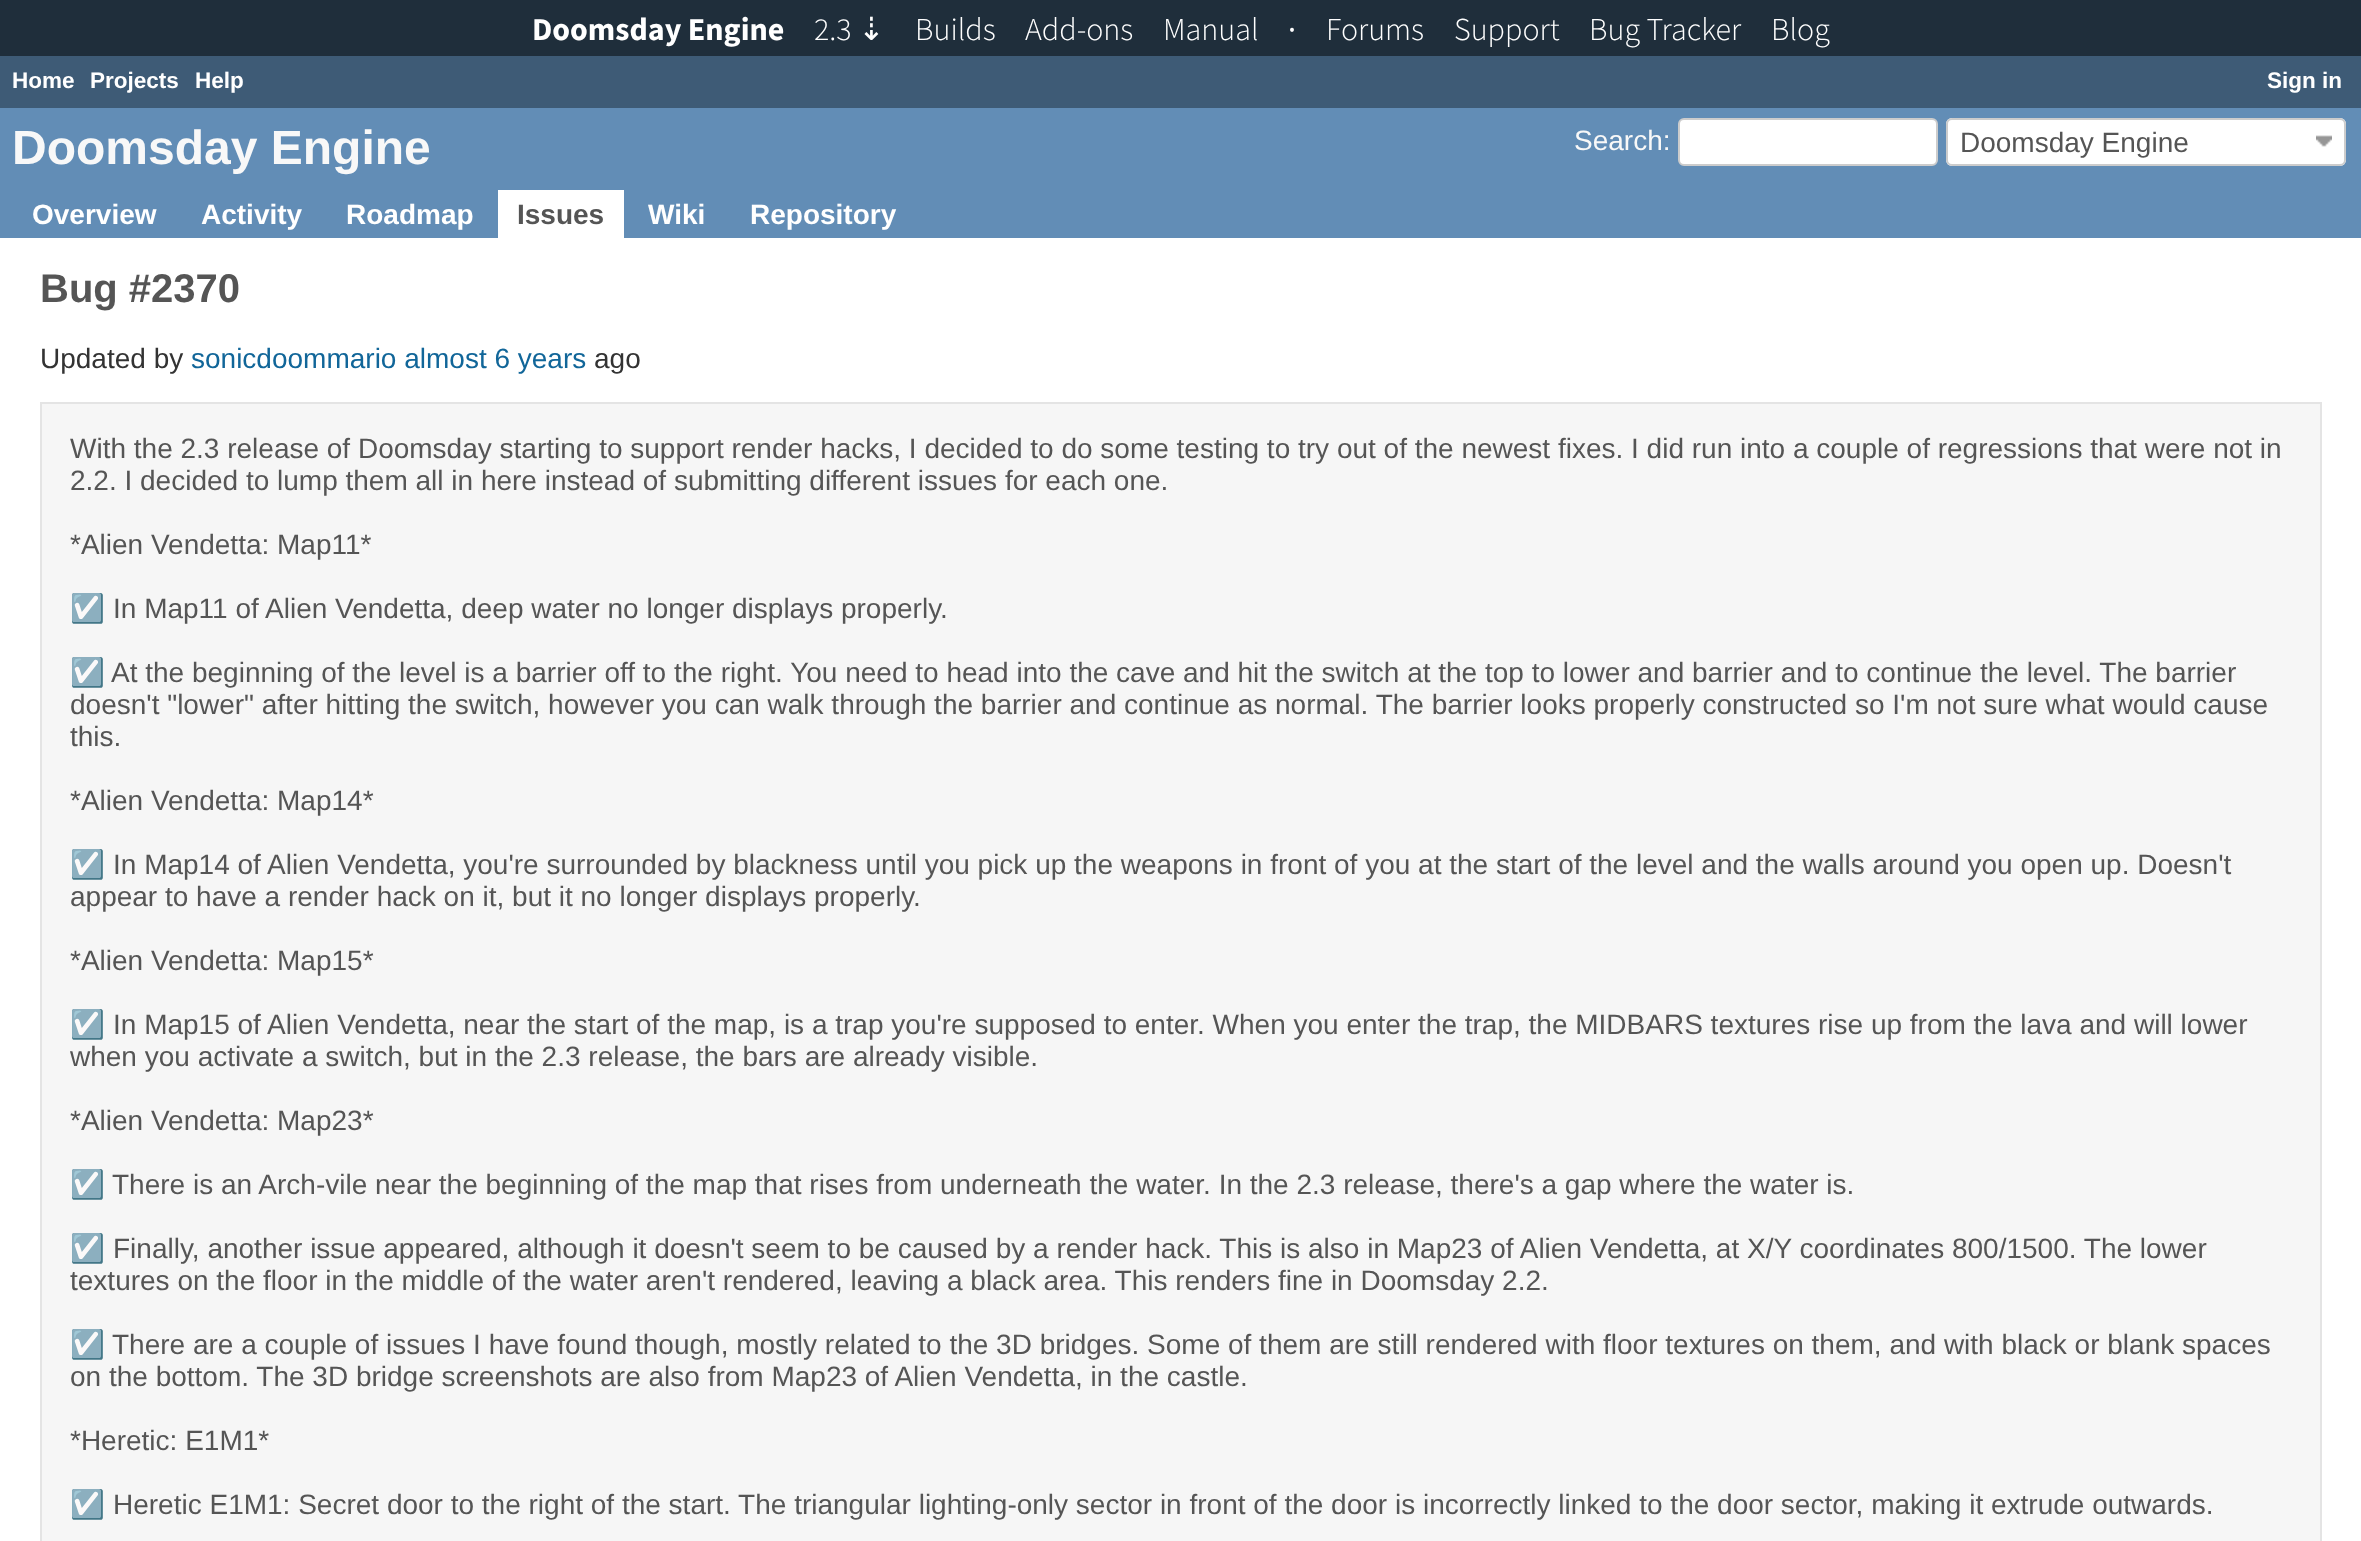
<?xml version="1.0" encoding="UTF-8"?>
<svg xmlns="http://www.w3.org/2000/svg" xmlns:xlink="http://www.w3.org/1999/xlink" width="2361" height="1541">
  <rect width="100%" height="100%" fill="#3e5b76" />
  <rect width="2361" height="56" fill="#1f2e3b" />
  <rect y="108" width="2361" height="130" fill="#628db6" />
  <rect x="1679" y="119" width="258" height="46" rx="5" fill="#ffffff" stroke="#cccccc" stroke-width="2" />
  <rect x="1946" y="118" width="400" height="48" rx="6" fill="#ffffff" />
  <image x="2316" y="135" width="16" height="12" xlink:href="image1.png" />
  <rect x="1947" y="119" width="398" height="46" rx="5" fill="none" stroke="#cccccc" stroke-width="2" />
  <rect x="498" y="190" width="126" height="48" fill="#ffffff" />
  <rect y="238" width="2361" height="1303" fill="#ffffff" />
  <rect x="41" y="403" width="2280" height="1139" fill="#f6f6f6" stroke="#e4e4e4" stroke-width="2" />
  <text x="532" y="40" style="font-family: Source Sans Pro; font-size: 32px; font-weight: bold; fill: #ffffff">Doomsday Engine</text>
  <text x="814" y="40" style="font-family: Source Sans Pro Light; font-size: 32px; font-weight: 300; fill: #ffffff">2.3</text>
  <text x="858" y="40" style="font-family: DejaVu Sans; font-size: 32px; fill: #ffffff">⇣</text>
  <text x="915" y="40" style="font-family: Source Sans Pro Light; font-size: 32px; font-weight: 300; fill: #ffffff">Builds</text>
  <text x="1025" y="40" style="font-family: Source Sans Pro Light; font-size: 32px; font-weight: 300; fill: #ffffff">Add-ons</text>
  <text x="1163" y="40" style="font-family: Source Sans Pro Light; font-size: 32px; font-weight: 300; fill: #ffffff">Manual</text>
  <text x="1288" y="40" style="font-family: Source Sans Pro; font-size: 32px; fill: #ffffff">·</text>
  <text x="1326" y="40" style="font-family: Source Sans Pro Light; font-size: 32px; font-weight: 300; fill: #ffffff">Forums</text>
  <text x="1454" y="40" style="font-family: Source Sans Pro Light; font-size: 32px; font-weight: 300; fill: #ffffff">Support</text>
  <text x="1589" y="40" style="font-family: Source Sans Pro Light; font-size: 32px; font-weight: 300; fill: #ffffff">Bug Tracker</text>
  <text x="1771" y="40" style="font-family: Source Sans Pro Light; font-size: 32px; font-weight: 300; fill: #ffffff">Blog</text>
  <text x="12" y="88" style="font-family: Liberation Sans; font-size: 22.5px; font-weight: bold; fill: #ffffff">Home</text>
  <text x="90" y="88" style="font-family: Liberation Sans; font-size: 22.5px; font-weight: bold; fill: #ffffff">Projects</text>
  <text x="195" y="88" style="font-family: Liberation Sans; font-size: 22.5px; font-weight: bold; fill: #ffffff">Help</text>
  <text x="2267" y="88" style="font-family: Liberation Sans; font-size: 22.5px; font-weight: bold; fill: #ffffff">Sign in</text>
  <text x="12" y="164" style="font-family: Liberation Sans; font-size: 48px; font-weight: bold; fill: #f8f8f8">Doomsday Engine</text>
  <text x="1574" y="150" style="font-family: Liberation Sans; font-size: 28px; fill: #f8f8f8">Search:</text>
  <text x="1960" y="152" style="font-family: Liberation Sans; font-size: 28px; fill: #555555">Doomsday Engine</text>
  <text x="32" y="224" style="font-family: Liberation Sans; font-size: 28px; font-weight: bold; fill: #ffffff">Overview</text>
  <text x="201" y="224" style="font-family: Liberation Sans; font-size: 28px; font-weight: bold; fill: #ffffff">Activity</text>
  <text x="346" y="224" style="font-family: Liberation Sans; font-size: 28px; font-weight: bold; fill: #ffffff">Roadmap</text>
  <text x="517" y="224" style="font-family: Liberation Sans; font-size: 28px; font-weight: bold; fill: #555555">Issues</text>
  <text x="648" y="224" style="font-family: Liberation Sans; font-size: 28px; font-weight: bold; fill: #ffffff">Wiki</text>
  <text x="750" y="224" style="font-family: Liberation Sans; font-size: 28px; font-weight: bold; fill: #ffffff">Repository</text>
  <text x="40" y="302" style="font-family: Liberation Sans; font-size: 40px; font-weight: bold; fill: #555555">Bug #2370</text>
  <text x="40" y="368" style="font-family: Liberation Sans; font-size: 28px; fill: #333333">Updated by</text>
  <text x="191" y="368" style="font-family: Liberation Sans; font-size: 28px; fill: #116699">sonicdoommario almost 6 years</text>
  <text x="594" y="368" style="font-family: Liberation Sans; font-size: 28px; fill: #333333">ago</text>
  <text x="70" y="458" style="font-family: Liberation Sans; font-size: 28px; fill: #555555">With the 2.3 release of Doomsday starting to support render hacks, I decided to do some testing to try out of the newest fixes. I did run into a couple of regressions that were not in</text>
  <text x="70" y="490" style="font-family: Liberation Sans; font-size: 28px; fill: #555555">2.2. I decided to lump them all in here instead of submitting different issues for each one.</text>
  <text x="70" y="554" style="font-family: Liberation Sans; font-size: 28px; fill: #555555">*Alien Vendetta: Map11*</text>
  <text x="70" y="618" style="font-family: Noto Color Emoji; font-size: 28px; fill: #555555">☑️</text>
  <text x="113" y="618" style="font-family: Liberation Sans; font-size: 28px; fill: #555555">In Map11 of Alien Vendetta, deep water no longer displays properly.</text>
  <text x="70" y="682" style="font-family: Noto Color Emoji; font-size: 28px; fill: #555555">☑️</text>
  <text x="111" y="682" style="font-family: Liberation Sans; font-size: 28px; fill: #555555">At the beginning of the level is a barrier off to the right. You need to head into the cave and hit the switch at the top to lower and barrier and to continue the level. The barrier</text>
  <text x="70" y="714" style="font-family: Liberation Sans; font-size: 28px; fill: #555555">doesn't "lower" after hitting the switch, however you can walk through the barrier and continue as normal. The barrier looks properly constructed so I'm not sure what would cause</text>
  <text x="70" y="746" style="font-family: Liberation Sans; font-size: 28px; fill: #555555">this.</text>
  <text x="70" y="810" style="font-family: Liberation Sans; font-size: 28px; fill: #555555">*Alien Vendetta: Map14*</text>
  <text x="70" y="874" style="font-family: Noto Color Emoji; font-size: 28px; fill: #555555">☑️</text>
  <text x="113" y="874" style="font-family: Liberation Sans; font-size: 28px; fill: #555555">In Map14 of Alien Vendetta, you're surrounded by blackness until you pick up the weapons in front of you at the start of the level and the walls around you open up. Doesn't</text>
  <text x="70" y="906" style="font-family: Liberation Sans; font-size: 28px; fill: #555555">appear to have a render hack on it, but it no longer displays properly.</text>
  <text x="70" y="970" style="font-family: Liberation Sans; font-size: 28px; fill: #555555">*Alien Vendetta: Map15*</text>
  <text x="70" y="1034" style="font-family: Noto Color Emoji; font-size: 28px; fill: #555555">☑️</text>
  <text x="113" y="1034" style="font-family: Liberation Sans; font-size: 28px; fill: #555555">In Map15 of Alien Vendetta, near the start of the map, is a trap you're supposed to enter. When you enter the trap, the MIDBARS textures rise up from the lava and will lower</text>
  <text x="70" y="1066" style="font-family: Liberation Sans; font-size: 28px; fill: #555555">when you activate a switch, but in the 2.3 release, the bars are already visible.</text>
  <text x="70" y="1130" style="font-family: Liberation Sans; font-size: 28px; fill: #555555">*Alien Vendetta: Map23*</text>
  <text x="70" y="1194" style="font-family: Noto Color Emoji; font-size: 28px; fill: #555555">☑️</text>
  <text x="112" y="1194" style="font-family: Liberation Sans; font-size: 28px; fill: #555555">There is an Arch-vile near the beginning of the map that rises from underneath the water. In the 2.3 release, there's a gap where the water is.</text>
  <text x="70" y="1258" style="font-family: Noto Color Emoji; font-size: 28px; fill: #555555">☑️</text>
  <text x="113" y="1258" style="font-family: Liberation Sans; font-size: 28px; fill: #555555">Finally, another issue appeared, although it doesn't seem to be caused by a render hack. This is also in Map23 of Alien Vendetta, at X/Y coordinates 800/1500. The lower</text>
  <text x="70" y="1290" style="font-family: Liberation Sans; font-size: 28px; fill: #555555">textures on the floor in the middle of the water aren't rendered, leaving a black area. This renders fine in Doomsday 2.2.</text>
  <text x="70" y="1354" style="font-family: Noto Color Emoji; font-size: 28px; fill: #555555">☑️</text>
  <text x="112" y="1354" style="font-family: Liberation Sans; font-size: 28px; fill: #555555">There are a couple of issues I have found though, mostly related to the 3D bridges. Some of them are still rendered with floor textures on them, and with black or blank spaces</text>
  <text x="70" y="1386" style="font-family: Liberation Sans; font-size: 28px; fill: #555555">on the bottom. The 3D bridge screenshots are also from Map23 of Alien Vendetta, in the castle.</text>
  <text x="70" y="1450" style="font-family: Liberation Sans; font-size: 28px; fill: #555555">*Heretic: E1M1*</text>
  <text x="70" y="1514" style="font-family: Noto Color Emoji; font-size: 28px; fill: #555555">☑️</text>
  <text x="113" y="1514" style="font-family: Liberation Sans; font-size: 28px; fill: #555555">Heretic E1M1: Secret door to the right of the start. The triangular lighting-only sector in front of the door is incorrectly linked to the door sector, making it extrude outwards.</text>
</svg>
